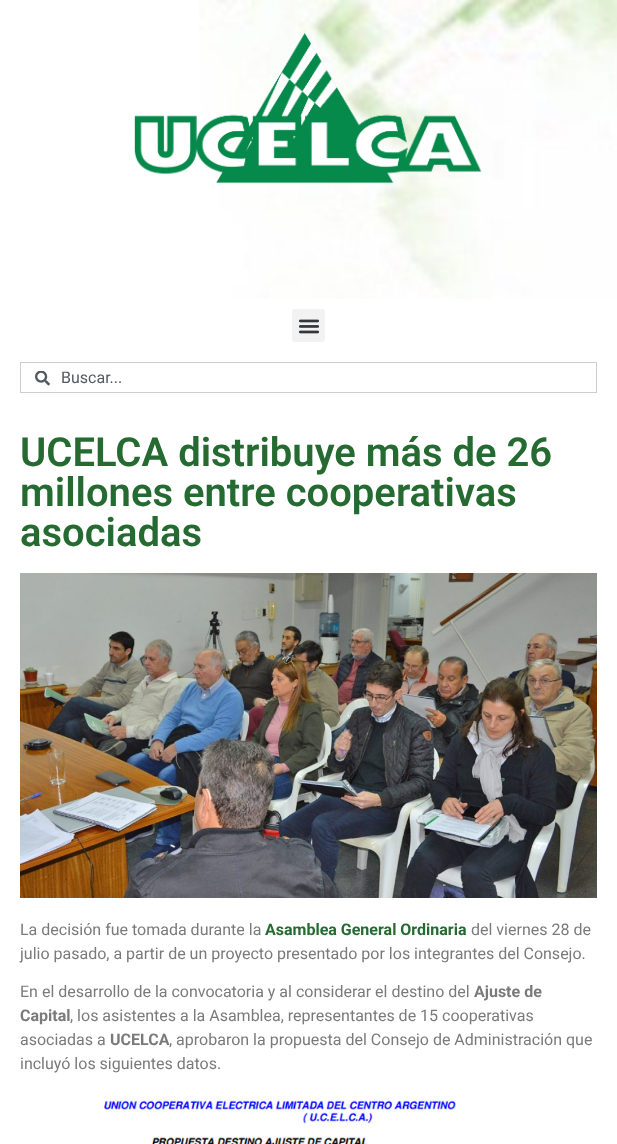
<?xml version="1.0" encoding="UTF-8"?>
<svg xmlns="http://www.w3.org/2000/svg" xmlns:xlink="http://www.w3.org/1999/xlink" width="617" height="1144">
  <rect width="100%" height="100%" fill="#ffffff" />
  <image x="199" y="0" width="418" height="299" xlink:href="image1.png" />
  <image x="134" y="32" width="348" height="152" xlink:href="image2.png" />
  <rect x="292" y="309" width="33" height="33" rx="3" fill="#f2f2f2" />
  <image x="298" y="319" width="22" height="15" xlink:href="image3.png" />
  <rect x="20.5" y="362.5" width="576" height="30" fill="none" stroke="#cdcdcd" />
  <image x="35" y="371" width="15" height="15" xlink:href="image4.png" />
  <image x="20" y="573" width="577" height="325" xlink:href="image5.png" />
  <image x="103" y="1098" width="353" height="46" xlink:href="image6.png" />
  <text x="61" y="383" style="font-family: Roboto; font-size: 16px; fill: #515962">Buscar...</text>
  <text x="20" y="466" style="font-family: Roboto; font-size: 40px; font-weight: 600; fill: #246a31">UCELCA distribuye más de 26</text>
  <text x="20" y="506" style="font-family: Roboto; font-size: 40px; font-weight: 600; fill: #246a31">millones entre cooperativas</text>
  <text x="20" y="546" style="font-family: Roboto; font-size: 40px; font-weight: 600; fill: #246a31">asociadas</text>
  <text x="20" y="935" style="font-family: Roboto; font-size: 16px; fill: #7a7a7a">La decisión fue tomada durante la</text>
  <text x="265" y="935" style="font-family: Roboto; font-size: 16px; font-weight: bold; fill: #246a31">Asamblea General Ordinaria</text>
  <text x="471" y="935" style="font-family: Roboto; font-size: 16px; fill: #7a7a7a">del viernes 28 de</text>
  <text x="20" y="959" style="font-family: Roboto; font-size: 16px; fill: #7a7a7a">julio pasado, a partir de un proyecto presentado por los integrantes del Consejo.</text>
  <text x="20" y="997" style="font-family: Roboto; font-size: 16px; fill: #7a7a7a">En el desarrollo de la convocatoria y al considerar el destino del</text>
  <text x="474" y="997" style="font-family: Roboto; font-size: 16px; font-weight: bold; fill: #7a7a7a">Ajuste de</text>
  <text x="20" y="1021" style="font-family: Roboto; font-size: 16px; font-weight: bold; fill: #7a7a7a">Capital</text>
  <text x="70" y="1021" style="font-family: Roboto; font-size: 16px; fill: #7a7a7a">, los asistentes a la Asamblea, representantes de 15 cooperativas</text>
  <text x="20" y="1045" style="font-family: Roboto; font-size: 16px; fill: #7a7a7a">asociadas a</text>
  <text x="110" y="1045" style="font-family: Roboto; font-size: 16px; font-weight: bold; fill: #7a7a7a">UCELCA</text>
  <text x="169" y="1045" style="font-family: Roboto; font-size: 16px; fill: #7a7a7a">, aprobaron la propuesta del Consejo de Administración que</text>
  <text x="20" y="1069" style="font-family: Roboto; font-size: 16px; fill: #7a7a7a">incluyó los siguientes datos.</text>
</svg>
